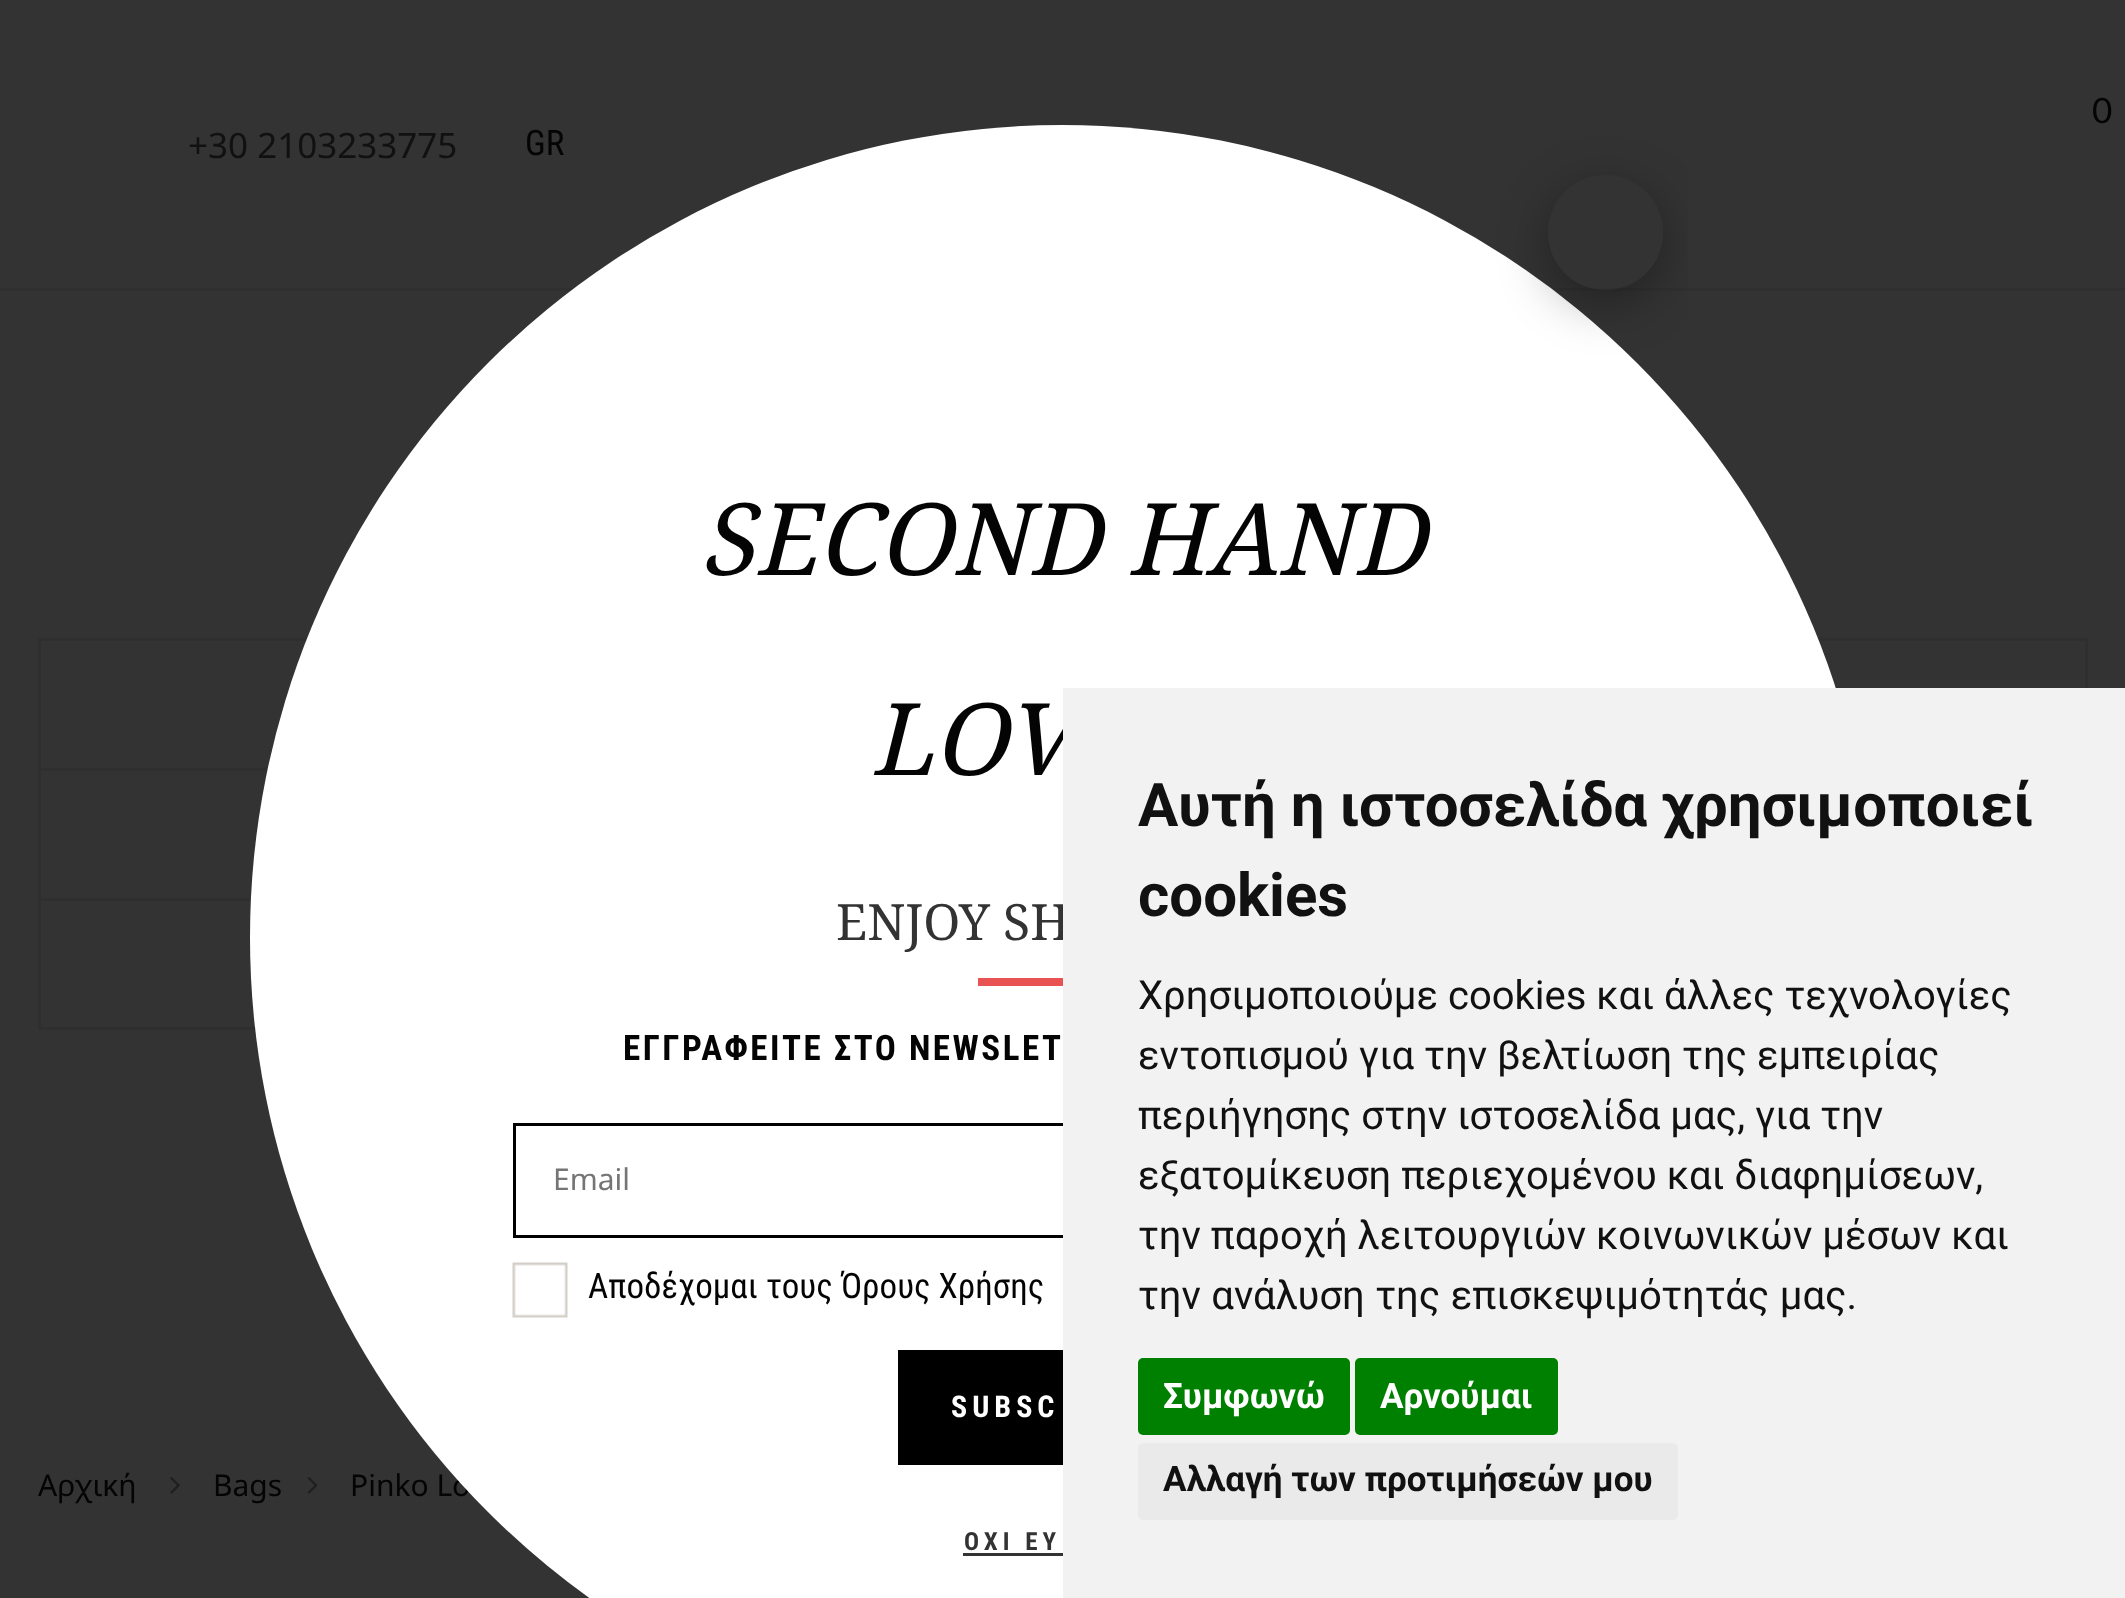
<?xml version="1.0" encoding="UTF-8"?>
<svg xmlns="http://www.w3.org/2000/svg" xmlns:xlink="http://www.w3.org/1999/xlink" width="2125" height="1598">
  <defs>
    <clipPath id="clip1"><rect x="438" y="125" width="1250" height="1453" /></clipPath>
    <clipPath id="clip2"><path d="M 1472 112 h 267 v 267 h -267 z m 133.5 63 c 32 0 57.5 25.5 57.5 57.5 c 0 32 -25.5 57.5 -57.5 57.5 c -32 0 -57.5 -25.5 -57.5 -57.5 c 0 -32 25.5 -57.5 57.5 -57.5 z" clip-rule="evenodd" /></clipPath>
  </defs>
  <rect width="100%" height="100%" fill="#333333" />
  <rect y="288" width="2125" height="3" fill="#303030" />
  <rect x="39.5" y="639.5" width="2047" height="389" fill="none" stroke="#2f2f2f" stroke-width="3" />
  <rect x="40" y="768" width="228" height="3" fill="#2f2f2f" />
  <rect x="40" y="898" width="211" height="3" fill="#2f2f2f" />
  <image x="170" y="1477" width="10" height="17" xlink:href="image1.png" />
  <image x="307" y="1477" width="11" height="17" xlink:href="image2.png" />
  <text x="2092" y="123" style="font-family: Lato; font-size: 35px; fill: #040404">0</text>
  <text x="188" y="158" style="font-family: Noto Sans; font-size: 35px; fill: #111111">+30 2103233775</text>
  <text x="525" y="155" style="font-family: Roboto Condensed; font-size: 35px; fill: #040404">GR</text>
  <text x="38" y="1496" style="font-family: Noto Sans; font-size: 30px; fill: #040404">Αρχική</text>
  <text x="213" y="1496" style="font-family: Noto Sans; font-size: 30px; fill: #040404">Bags</text>
  <text x="350" y="1496" style="font-family: Noto Sans; font-size: 30px; fill: #040404">Pinko Lo</text>
  <circle cx="1062.5" cy="937.5" r="812.5" fill="#ffffff" />
  <g clip-path="url(#clip1)">
    <g clip-path="url(#clip2)">
      <rect x="1548" y="188" width="115" height="115" rx="57.5" fill="#000000" fill-opacity="0.33" filter="blur(25px)" />
    </g>
  </g>
  <text x="699" y="575" style="font-family: Noto Serif; font-size: 100px; font-style: italic; fill: #040404">SECOND HAND</text>
  <text x="870" y="775" style="font-family: Noto Serif; font-size: 100px; font-style: italic; fill: #040404">LOV</text>
  <text x="836" y="940" style="font-family: Noto Serif; font-size: 50px; fill: #333333">ENJOY SH</text>
  <rect x="978" y="978" width="85" height="8" fill="#e95252" />
  <text x="623" y="1060" style="font-family: Roboto Condensed; font-size: 35px; font-weight: bold; letter-spacing: 2.5px; fill: #040404">ΕΓΓΡΑΦΕΙΤΕ ΣΤΟ NEWSLET</text>
  <rect x="514.5" y="1124.5" width="1097" height="112" fill="none" stroke="#000000" stroke-width="3" />
  <text x="553" y="1190" style="font-family: Noto Sans; font-size: 30px; fill: #757575">Email</text>
  <image x="512" y="1262" width="56" height="56" xlink:href="image3.png" />
  <text x="588" y="1298" style="font-family: Roboto Condensed; font-size: 35px; fill: #040404">Αποδέχομαι τους Όρους Χρήσης</text>
  <rect x="898" y="1350" width="165" height="115" fill="#000000" />
  <text x="951" y="1417" style="font-family: Roboto Condensed; font-size: 30px; font-weight: bold; letter-spacing: 5px; fill: #ffffff">SUBSC</text>
  <text x="964" y="1550" style="font-family: Roboto Condensed; font-size: 25px; font-weight: bold; letter-spacing: 5px; fill: #333333">ΟΧΙ ΕΥ</text>
  <rect x="963" y="1553" width="100" height="3" fill="#333333" />
  <rect x="1063" y="688" width="1062" height="910" fill="#f2f2f2" />
  <text x="1138" y="826" style="font-family: Roboto; font-size: 60px; font-weight: bold; fill: #111111">Αυτή η ιστοσελίδα χρησιμοποιεί</text>
  <text x="1138" y="916" style="font-family: Roboto; font-size: 60px; font-weight: bold; fill: #111111">cookies</text>
  <text x="1138" y="1009" style="font-family: Roboto; font-size: 40px; fill: #111111">Χρησιμοποιούμε cookies και άλλες τεχνολογίες</text>
  <text x="1138" y="1069" style="font-family: Roboto; font-size: 40px; fill: #111111">εντοπισμού για την βελτίωση της εμπειρίας</text>
  <text x="1138" y="1129" style="font-family: Roboto; font-size: 40px; fill: #111111">περιήγησης στην ιστοσελίδα μας, για την</text>
  <text x="1138" y="1189" style="font-family: Roboto; font-size: 40px; fill: #111111">εξατομίκευση περιεχομένου και διαφημίσεων,</text>
  <text x="1138" y="1249" style="font-family: Roboto; font-size: 40px; fill: #111111">την παροχή λειτουργιών κοινωνικών μέσων και</text>
  <text x="1138" y="1309" word-spacing="0.5" style="font-family: Roboto; font-size: 40px; fill: #111111">την ανάλυση της επισκεψιμότητάς μας.</text>
  <rect x="1138" y="1358" width="212" height="77" rx="5" fill="#008000" />
  <text x="1163" y="1408" style="font-family: Roboto; font-size: 35px; font-weight: bold; fill: #ffffff">Συμφωνώ</text>
  <rect x="1355" y="1358" width="203" height="77" rx="5" fill="#008000" />
  <text x="1380" y="1408" style="font-family: Roboto; font-size: 35px; font-weight: bold; fill: #ffffff">Αρνούμαι</text>
  <rect x="1138" y="1443" width="540" height="77" rx="5" fill="#eaeaea" />
  <text x="1163" y="1491" style="font-family: Roboto; font-size: 35px; font-weight: bold; fill: #111111">Αλλαγή των προτιμήσεών μου</text>
</svg>
